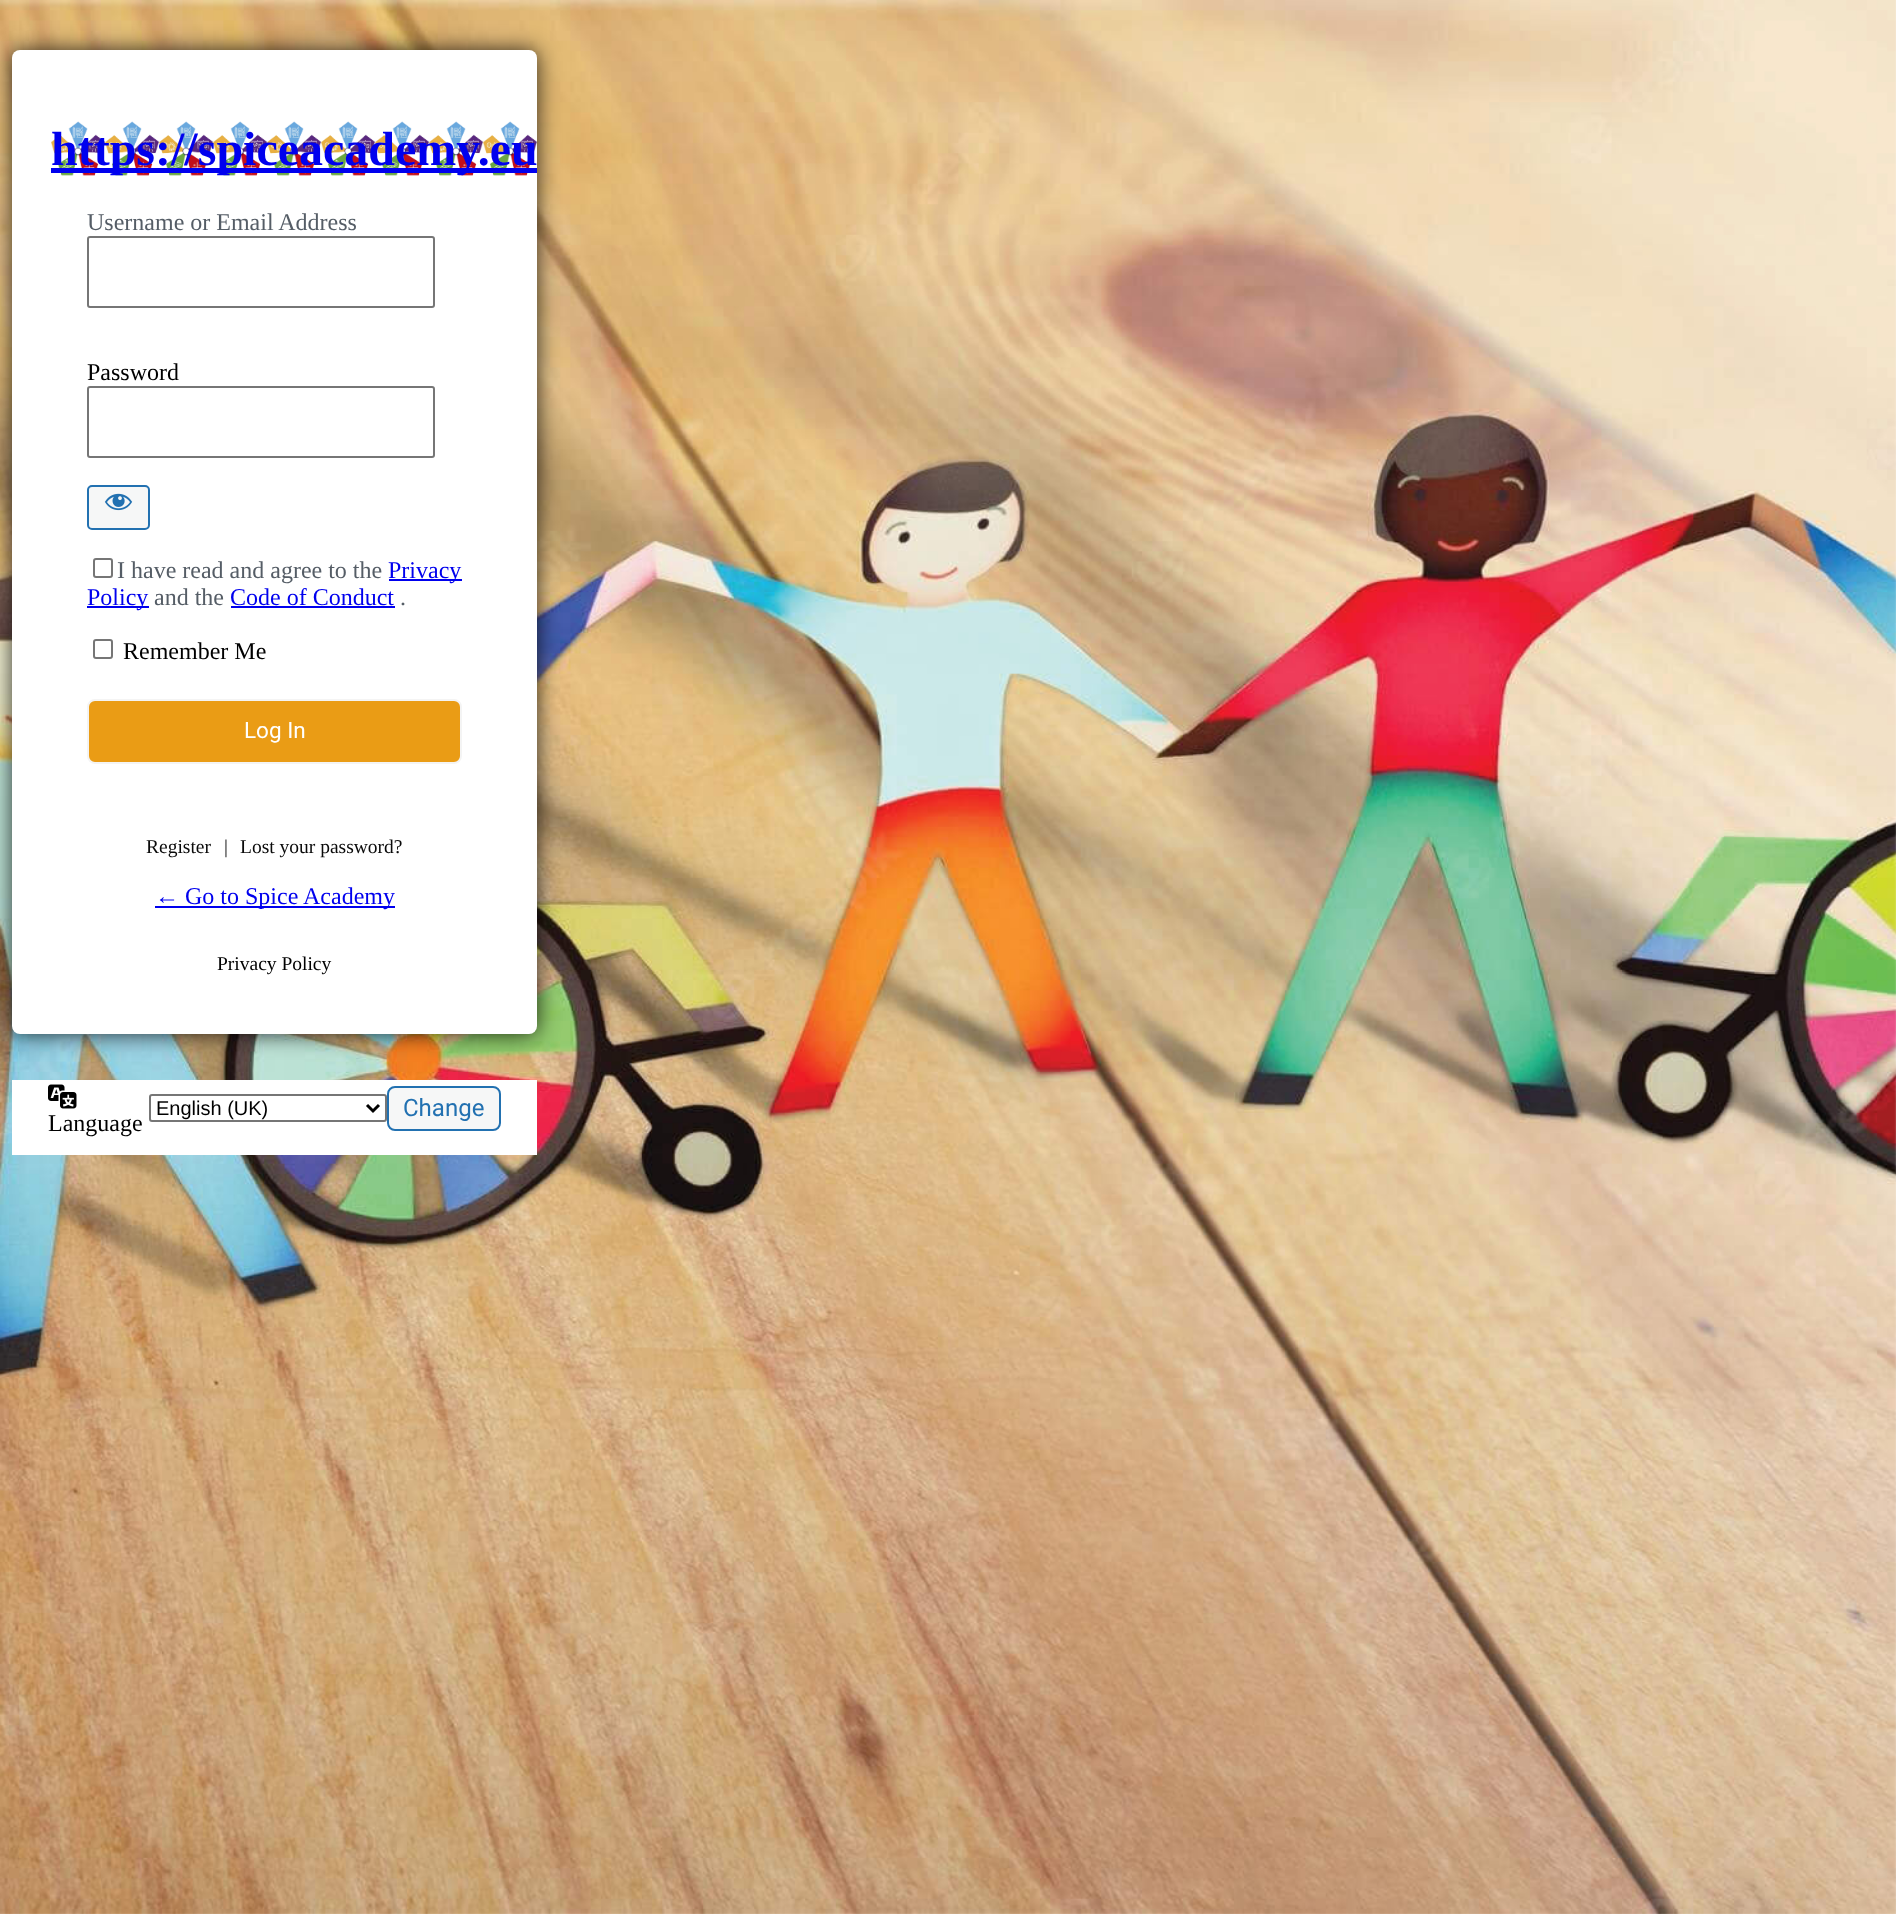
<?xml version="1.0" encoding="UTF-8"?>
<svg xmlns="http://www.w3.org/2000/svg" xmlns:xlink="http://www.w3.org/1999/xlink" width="1896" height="1914">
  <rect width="100%" height="100%" fill="#ffffff" />
  <image x="0" y="0" width="1896" height="1914" xlink:href="image1.png" />
  <rect x="12" y="50" width="525" height="984" rx="8" fill="#000000" fill-opacity="0.8" filter="blur(11px)" />
  <rect x="12" y="50" width="525" height="984" rx="8" fill="#ffffff" />
  <image x="51" y="121" width="486" height="55" xlink:href="image2.png" />
  <rect x="51" y="168" width="486" height="5" fill="#0000ee" />
  <rect x="88" y="237" width="346" height="70" rx="2" fill="none" stroke="#767676" stroke-width="2" />
  <rect x="88" y="387" width="346" height="70" rx="2" fill="none" stroke="#767676" stroke-width="2" />
  <rect x="88" y="486" width="61" height="43" rx="4" fill="#f6f7f7" stroke="#2271b1" stroke-width="2" />
  <image x="104" y="493" width="29" height="18" xlink:href="image3.png" />
  <rect x="94" y="559" width="18" height="18" rx="2" fill="none" stroke="#767676" stroke-width="2" />
  <rect x="389" y="579" width="73" height="2" fill="#0000ee" />
  <rect x="87" y="606" width="62" height="2" fill="#0000ee" />
  <rect x="231" y="606" width="164" height="2" fill="#0000ee" />
  <rect x="94" y="640" width="18" height="18" rx="2" fill="none" stroke="#767676" stroke-width="2" />
  <rect x="88" y="700" width="373" height="63" rx="7" fill="#ea9c15" stroke="#f4f4f4" stroke-width="2" />
  <rect x="155" y="906" width="240" height="2" fill="#0000ee" />
  <rect x="12" y="1080" width="525" height="75" fill="#ffffff" />
  <rect x="150" y="1095" width="236" height="26" rx="2" fill="none" stroke="#767676" stroke-width="2" />
  <path d="M 367 1105 l 6 6 l 6 -6" fill="none" stroke="#000000" stroke-width="3" />
  <rect x="388" y="1087" width="112" height="43" rx="7" fill="#f6f7f7" stroke="#2271b1" stroke-width="2" />
  <image x="48" y="1084" width="29" height="25" xlink:href="image4.png" />
  <text x="51" y="165" style="font-family: Liberation Serif; font-size: 48px; font-weight: bold; fill: #0000ee">https://spiceacademy.eu</text>
  <text x="87" y="230" style="font-family: Liberation Serif; font-size: 24px; fill: #555d66">Username or Email Address</text>
  <text x="87" y="380" style="font-family: Liberation Serif; font-size: 24px; fill: #000000">Password</text>
  <text x="117" y="578" style="font-family: Liberation Serif; font-size: 24px; fill: #555d66">I have read and agree to the</text>
  <text x="388" y="578" style="font-family: Liberation Serif; font-size: 24px; fill: #0000ee">Privacy</text>
  <text x="87" y="605" style="font-family: Liberation Serif; font-size: 24px; fill: #0000ee">Policy</text>
  <text x="154" y="605" style="font-family: Liberation Serif; font-size: 24px; fill: #555d66">and the</text>
  <text x="230" y="605" style="font-family: Liberation Serif; font-size: 24px; fill: #0000ee">Code of Conduct</text>
  <text x="400" y="605" style="font-family: Liberation Serif; font-size: 24px; fill: #555d66">.</text>
  <text x="123" y="659" style="font-family: Liberation Serif; font-size: 24px; fill: #000000">Remember Me</text>
  <text x="244" y="738" style="font-family: Roboto; font-size: 22.5px; fill: #ffffff">Log In</text>
  <text x="146" y="853" style="font-family: Liberation Serif; font-size: 19.5px; fill: #0a0a0a">Register</text>
  <text x="224" y="853" style="font-family: Liberation Serif; font-size: 19.5px; fill: #0a0a0a">|</text>
  <text x="240" y="853" style="font-family: Liberation Serif; font-size: 19.5px; fill: #0a0a0a">Lost your password?</text>
  <text x="155" y="904" style="font-family: Liberation Serif; font-size: 24px; fill: #0000ee">← Go to Spice Academy</text>
  <text x="217" y="970" style="font-family: Liberation Serif; font-size: 19.5px; fill: #000000">Privacy Policy</text>
  <text x="156" y="1115" style="font-family: Liberation Sans; font-size: 20px; fill: #000000">English (UK)</text>
  <text x="403" y="1116" style="font-family: Roboto; font-size: 24px; fill: #2271b1">Change</text>
  <text x="48" y="1131" style="font-family: Liberation Serif; font-size: 24px; fill: #000000">Language</text>
</svg>
